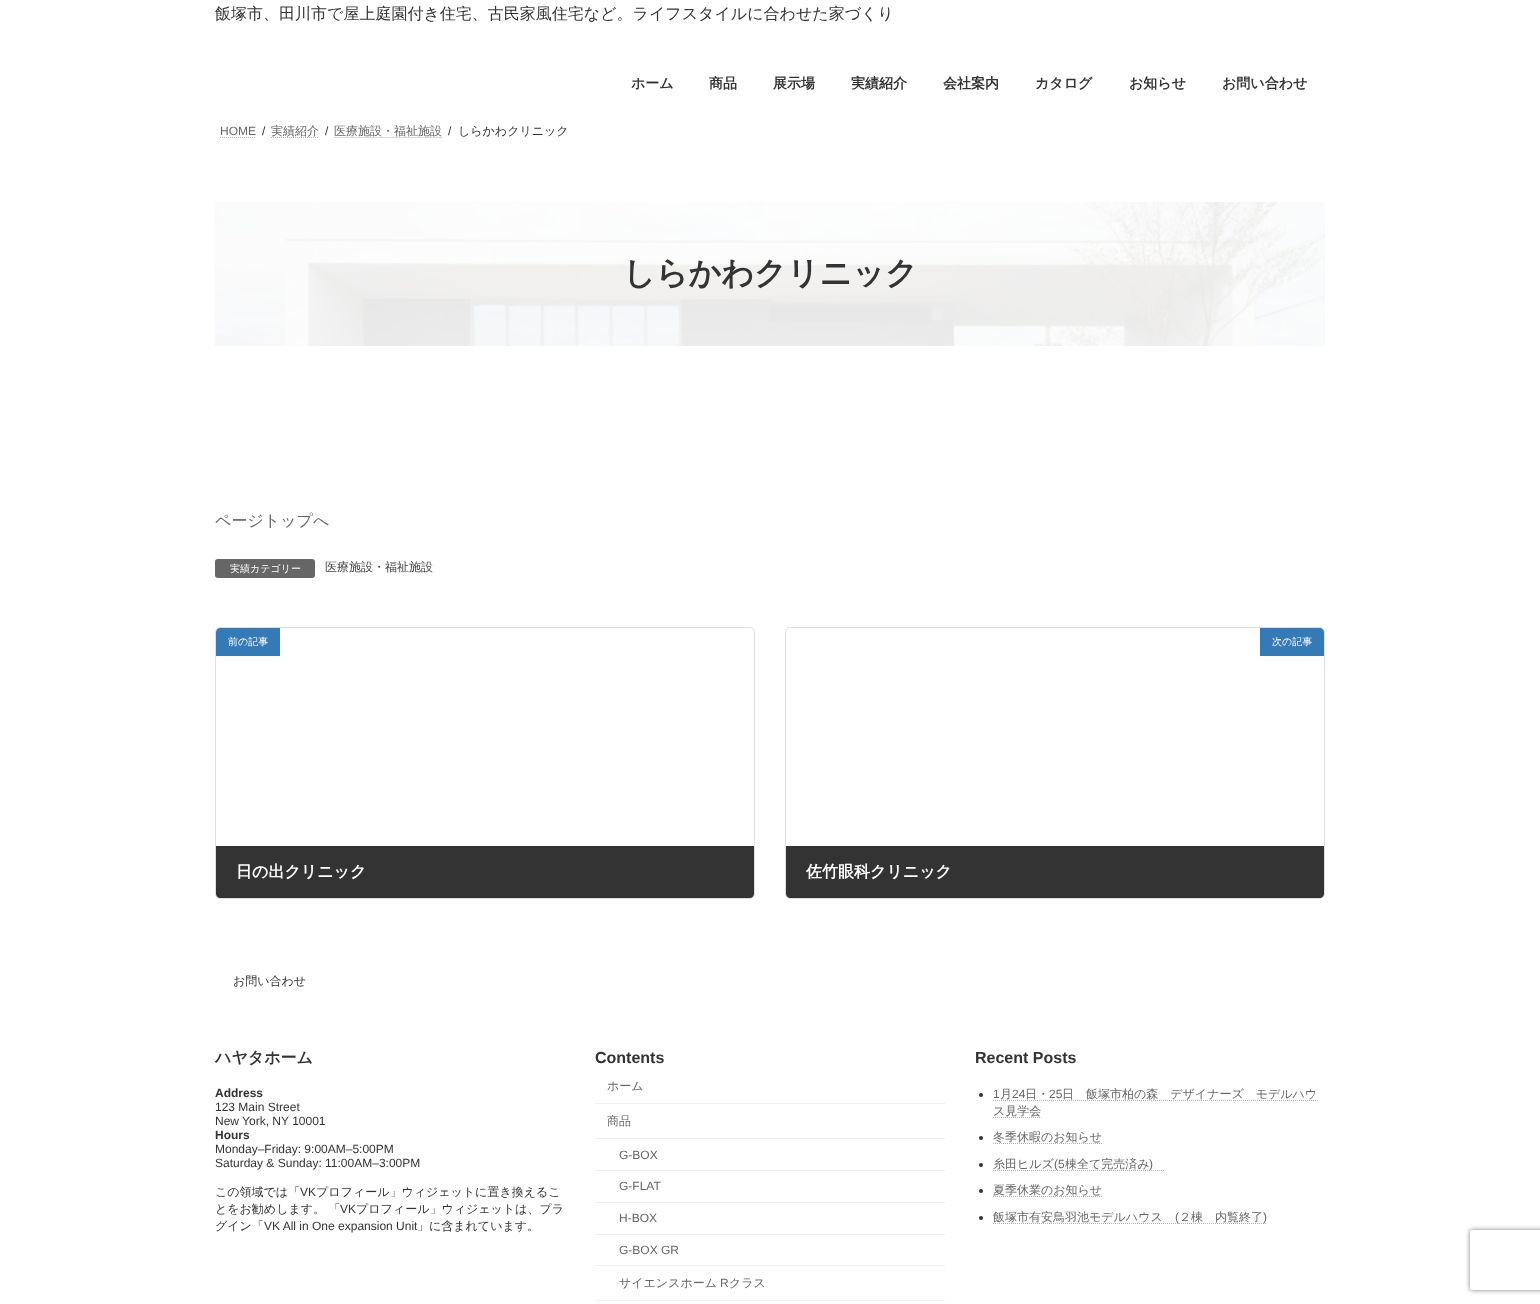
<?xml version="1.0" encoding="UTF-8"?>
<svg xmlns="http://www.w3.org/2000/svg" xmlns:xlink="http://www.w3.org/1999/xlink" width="1540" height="1304">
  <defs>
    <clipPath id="clip1"><rect x="216" y="628" width="538" height="270" rx="4" /></clipPath>
    <clipPath id="clip2"><rect x="786" y="628" width="538" height="270" rx="4" /></clipPath>
    <clipPath id="clip3"><path d="M 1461 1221 h 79 v 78 h -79 z m 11 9 h 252 c 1 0 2 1 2 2 v 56 c 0 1 -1 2 -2 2 h -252 c -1 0 -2 -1 -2 -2 v -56 c 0 -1 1 -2 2 -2 z" clip-rule="evenodd" /></clipPath>
  </defs>
  <rect width="100%" height="100%" fill="#ffffff" />
  <path d="M 220 137.5 h 36" fill="none" stroke="#b3b3b3" stroke-dasharray="1 1" />
  <path d="M 271 137.5 h 48" fill="none" stroke="#b3b3b3" stroke-dasharray="1 1" />
  <path d="M 334.5 137.5 h 108" fill="none" stroke="#b3b3b3" stroke-dasharray="1 1" />
  <image x="215" y="202" width="1110" height="144" xlink:href="image1.png" />
  <rect x="215" y="559" width="100" height="19" rx="3" fill="#666666" />
  <rect x="215.5" y="627.5" width="539" height="271" rx="4.5" fill="none" stroke="#dfdfdf" />
  <g clip-path="url(#clip1)">
    <rect x="216" y="897" width="538" height="1" fill="#e5e5e5" />
  </g>
  <path d="M 220 628 h 60 v 28 h -64 v -24 c 0 -2 2 -4 4 -4 z" fill="#337ab7" />
  <path d="M 216 846 h 538 v 48 c 0 2 -2 4 -4 4 h -530 c -2 0 -4 -2 -4 -4 z" fill="#000000" fill-opacity="0.8" />
  <rect x="785.5" y="627.5" width="539" height="271" rx="4.5" fill="none" stroke="#dfdfdf" />
  <g clip-path="url(#clip2)">
    <rect x="786" y="897" width="538" height="1" fill="#e5e5e5" />
  </g>
  <path d="M 1260 628 h 60 c 2 0 4 2 4 4 v 24 h -64 z" fill="#337ab7" />
  <path d="M 786 846 h 538 v 48 c 0 2 -2 4 -4 4 h -530 c -2 0 -4 -2 -4 -4 z" fill="#000000" fill-opacity="0.8" />
  <rect x="595" y="1103" width="350" height="1" fill="#f0f0f0" />
  <rect x="595" y="1138" width="350" height="1" fill="#f0f0f0" />
  <rect x="595" y="1170" width="350" height="1" fill="#f0f0f0" />
  <rect x="595" y="1202" width="350" height="1" fill="#f0f0f0" />
  <rect x="595" y="1234" width="350" height="1" fill="#f0f0f0" />
  <rect x="595" y="1265" width="350" height="1" fill="#f0f0f0" />
  <rect x="595" y="1300" width="350" height="1" fill="#f0f0f0" />
  <circle cx="981" cy="1095" r="2" fill="#333333" />
  <path d="M 993 1100.5 h 324.5" fill="none" stroke="#b3b3b3" stroke-dasharray="1 1" />
  <path d="M 993 1117.5 h 48.5" fill="none" stroke="#b3b3b3" stroke-dasharray="1 1" />
  <circle cx="981" cy="1138" r="2" fill="#333333" />
  <path d="M 993 1143.5 h 109" fill="none" stroke="#b3b3b3" stroke-dasharray="1 1" />
  <circle cx="981" cy="1165" r="2" fill="#333333" />
  <path d="M 993 1170.5 h 172" fill="none" stroke="#b3b3b3" stroke-dasharray="1 1" />
  <circle cx="981" cy="1191" r="2" fill="#333333" />
  <path d="M 993 1196.5 h 109" fill="none" stroke="#b3b3b3" stroke-dasharray="1 1" />
  <circle cx="981" cy="1218" r="2" fill="#333333" />
  <path d="M 993 1223.5 h 273.5" fill="none" stroke="#b3b3b3" stroke-dasharray="1 1" />
  <g clip-path="url(#clip3)">
    <rect x="1470" y="1230" width="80" height="60" rx="2" fill="#808080" filter="blur(2.5px)" />
  </g>
  <text x="215" y="19" style="font-family: WenQuanYi Zen Hei; font-size: 16px; font-weight: 500; fill: #333333">飯塚市、田川市で屋上庭園付き住宅、古民家風住宅など。ライフスタイルに合わせた家づくり</text>
  <text x="631" y="88" style="font-family: WenQuanYi Zen Hei; font-size: 14px; font-weight: bold; fill: #333333">ホーム</text>
  <text x="709" y="88" style="font-family: WenQuanYi Zen Hei; font-size: 14px; font-weight: bold; fill: #333333">商品</text>
  <text x="773" y="88" style="font-family: WenQuanYi Zen Hei; font-size: 14px; font-weight: bold; fill: #333333">展示場</text>
  <text x="851" y="88" style="font-family: WenQuanYi Zen Hei; font-size: 14px; font-weight: bold; fill: #333333">実績紹介</text>
  <text x="943" y="88" style="font-family: WenQuanYi Zen Hei; font-size: 14px; font-weight: bold; fill: #333333">会社案内</text>
  <text x="1035" y="88" style="font-family: WenQuanYi Zen Hei; font-size: 14px; font-weight: bold; fill: #333333">カタログ</text>
  <text x="1129" y="88" style="font-family: WenQuanYi Zen Hei; font-size: 14px; font-weight: bold; fill: #333333">お知らせ</text>
  <text x="1222" y="88" style="font-family: WenQuanYi Zen Hei; font-size: 14px; font-weight: bold; fill: #333333">お問い合わせ</text>
  <text x="220" y="135" style="font-family: Liberation Sans; font-size: 12px; fill: #666666">HOME</text>
  <text x="262" y="135" style="font-family: Liberation Sans; font-size: 12px; fill: #333333">/</text>
  <text x="271" y="135" style="font-family: WenQuanYi Zen Hei; font-size: 12px; font-weight: 500; fill: #666666">実績紹介</text>
  <text x="325" y="135" style="font-family: Liberation Sans; font-size: 12px; fill: #333333">/</text>
  <text x="334" y="135" style="font-family: WenQuanYi Zen Hei; font-size: 12px; font-weight: 500; fill: #666666">医療施設・福祉施設</text>
  <text x="448" y="135" style="font-family: Liberation Sans; font-size: 12px; fill: #333333">/</text>
  <text x="458" y="135" style="font-family: WenQuanYi Zen Hei; font-size: 12px; font-weight: 500; fill: #333333">しらかわクリニック</text>
  <text x="623" y="284" style="font-family: WenQuanYi Zen Hei; font-size: 32px; font-weight: bold; fill: #333333">しらかわクリニック</text>
  <text x="215" y="526" style="font-family: WenQuanYi Zen Hei; font-size: 16px; font-weight: 500; fill: #666666">ページトップへ</text>
  <text x="230" y="572" style="font-family: WenQuanYi Zen Hei; font-size: 10px; font-weight: 500; fill: #ffffff">実績カテゴリー</text>
  <text x="325" y="571" style="font-family: WenQuanYi Zen Hei; font-size: 12px; font-weight: 500; fill: #464646">医療施設・福祉施設</text>
  <text x="228" y="645" style="font-family: WenQuanYi Zen Hei; font-size: 10px; font-weight: 500; fill: #ffffff">前の記事</text>
  <text x="236" y="877" style="font-family: WenQuanYi Zen Hei; font-size: 16px; font-weight: bold; fill: #ffffff">日の出クリニック</text>
  <text x="1272" y="645" style="font-family: WenQuanYi Zen Hei; font-size: 10px; font-weight: 500; fill: #ffffff">次の記事</text>
  <text x="806" y="877" style="font-family: WenQuanYi Zen Hei; font-size: 16px; font-weight: bold; fill: #ffffff">佐竹眼科クリニック</text>
  <text x="233" y="985" style="font-family: WenQuanYi Zen Hei; font-size: 12px; font-weight: 500; fill: #333333">お問い合わせ</text>
  <text x="215" y="1063" style="font-family: WenQuanYi Zen Hei; font-size: 16px; font-weight: bold; fill: #333333">ハヤタホーム</text>
  <text x="215" y="1097" style="font-family: Liberation Sans; font-size: 12px; font-weight: bold; fill: #333333">Address</text>
  <text x="215" y="1111" style="font-family: Liberation Sans; font-size: 12px; fill: #333333">123 Main Street</text>
  <text x="215" y="1125" style="font-family: Liberation Sans; font-size: 12px; fill: #333333">New York, NY 10001</text>
  <text x="215" y="1139" style="font-family: Liberation Sans; font-size: 12px; font-weight: bold; fill: #333333">Hours</text>
  <text x="215" y="1153" style="font-family: Liberation Sans; font-size: 12px; fill: #333333">Monday–Friday: 9:00AM–5:00PM</text>
  <text x="215" y="1167" style="font-family: Liberation Sans; font-size: 12px; fill: #333333">Saturday &amp; Sunday: 11:00AM–3:00PM</text>
  <text x="215" y="1196" style="font-family: WenQuanYi Zen Hei; font-size: 12px; font-weight: 500; fill: #333333">この領域では「</text>
  <text x="300" y="1196" style="font-family: Liberation Sans; font-size: 12px; fill: #333333">VK</text>
  <text x="316" y="1196" style="font-family: WenQuanYi Zen Hei; font-size: 12px; font-weight: 500; fill: #333333">プロフィール」ウィジェットに置き換えるこ</text>
  <text x="215" y="1213" style="font-family: WenQuanYi Zen Hei; font-size: 12px; font-weight: 500; fill: #333333">とをお勧めします。 「</text>
  <text x="340" y="1213" style="font-family: Liberation Sans; font-size: 12px; fill: #333333">VK</text>
  <text x="356" y="1213" style="font-family: WenQuanYi Zen Hei; font-size: 12px; font-weight: 500; fill: #333333">プロフィール」ウィジェットは、プラ</text>
  <text x="215" y="1230" style="font-family: WenQuanYi Zen Hei; font-size: 12px; font-weight: 500; fill: #333333">グイン「</text>
  <text x="264" y="1230" style="font-family: Liberation Sans; font-size: 12px; fill: #333333">VK All in One expansion Unit</text>
  <text x="417" y="1230" style="font-family: WenQuanYi Zen Hei; font-size: 12px; font-weight: 500; fill: #333333">」に含まれています。</text>
  <text x="595" y="1063" style="font-family: Liberation Sans; font-size: 16px; font-weight: bold; fill: #333333">Contents</text>
  <text x="607" y="1090" style="font-family: WenQuanYi Zen Hei; font-size: 12px; font-weight: 500; fill: #666666">ホーム</text>
  <text x="607" y="1125" style="font-family: WenQuanYi Zen Hei; font-size: 12px; font-weight: 500; fill: #666666">商品</text>
  <text x="619" y="1159" style="font-family: Liberation Sans; font-size: 12px; fill: #666666">G-BOX</text>
  <text x="619" y="1190" style="font-family: Liberation Sans; font-size: 12px; fill: #666666">G-FLAT</text>
  <text x="619" y="1222" style="font-family: Liberation Sans; font-size: 12px; fill: #666666">H-BOX</text>
  <text x="619" y="1254" style="font-family: Liberation Sans; font-size: 12px; fill: #666666">G-BOX GR</text>
  <text x="619" y="1287" style="font-family: WenQuanYi Zen Hei; font-size: 12px; font-weight: 500; fill: #666666">サイエンスホーム</text>
  <text x="720" y="1287" style="font-family: Liberation Sans; font-size: 12px; fill: #666666">R</text>
  <text x="729" y="1287" style="font-family: WenQuanYi Zen Hei; font-size: 12px; font-weight: 500; fill: #666666">クラス</text>
  <text x="975" y="1063" style="font-family: Liberation Sans; font-size: 16px; font-weight: bold; fill: #333333">Recent Posts</text>
  <text x="993" y="1098" style="font-family: Liberation Sans; font-size: 12px; fill: #666666">1</text>
  <text x="1000" y="1098" style="font-family: WenQuanYi Zen Hei; font-size: 12px; font-weight: 500; fill: #666666">月</text>
  <text x="1012" y="1098" style="font-family: Liberation Sans; font-size: 12px; fill: #666666">24</text>
  <text x="1025" y="1098" style="font-family: WenQuanYi Zen Hei; font-size: 12px; font-weight: 500; fill: #666666">日・</text>
  <text x="1049" y="1098" style="font-family: Liberation Sans; font-size: 12px; fill: #666666">25</text>
  <text x="1062" y="1098" style="font-family: WenQuanYi Zen Hei; font-size: 12px; font-weight: 500; fill: #666666">日　飯塚市柏の森　デザイナーズ　モデルハウ</text>
  <text x="993" y="1115" style="font-family: WenQuanYi Zen Hei; font-size: 12px; font-weight: 500; fill: #666666">ス見学会</text>
  <text x="993" y="1141" style="font-family: WenQuanYi Zen Hei; font-size: 12px; font-weight: 500; fill: #666666">冬季休暇のお知らせ</text>
  <text x="993" y="1168" style="font-family: WenQuanYi Zen Hei; font-size: 12px; font-weight: 500; fill: #666666">糸田ヒルズ</text>
  <text x="1054" y="1168" style="font-family: Liberation Sans; font-size: 12px; fill: #666666">(5</text>
  <text x="1065" y="1168" style="font-family: WenQuanYi Zen Hei; font-size: 12px; font-weight: 500; fill: #666666">棟全て完売済み</text>
  <text x="1149" y="1168" style="font-family: Liberation Sans; font-size: 12px; fill: #666666">)</text>
  <text x="993" y="1194" style="font-family: WenQuanYi Zen Hei; font-size: 12px; font-weight: 500; fill: #666666">夏季休業のお知らせ</text>
  <text x="993" y="1221" style="font-family: WenQuanYi Zen Hei; font-size: 12px; font-weight: 500; fill: #666666">飯塚市有安鳥羽池モデルハウス</text>
  <text x="1175" y="1221" style="font-family: Liberation Sans; font-size: 12px; fill: #666666">(</text>
  <text x="1179" y="1221" style="font-family: WenQuanYi Zen Hei; font-size: 12px; font-weight: 500; fill: #666666">２棟　内覧終了</text>
  <text x="1263" y="1221" style="font-family: Liberation Sans; font-size: 12px; fill: #666666">)</text>
</svg>
